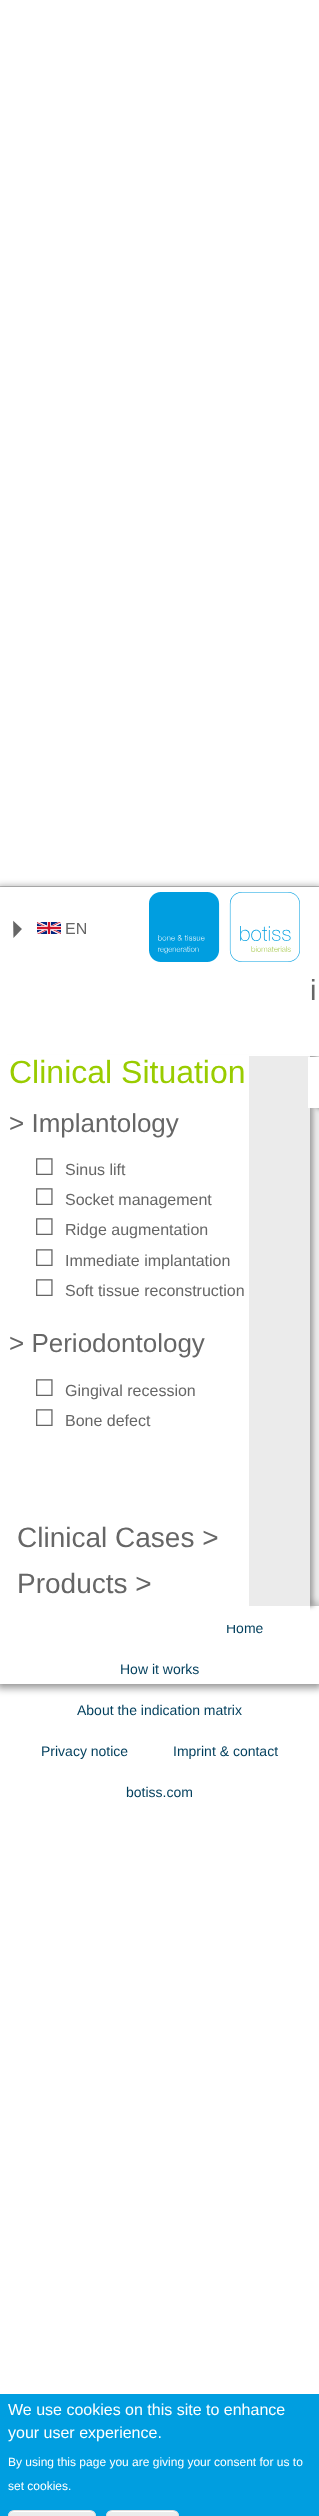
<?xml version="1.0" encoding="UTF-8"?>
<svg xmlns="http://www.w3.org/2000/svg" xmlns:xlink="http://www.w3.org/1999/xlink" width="319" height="2516">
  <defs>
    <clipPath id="clip1"><path d="M 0 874 h 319 v 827 h -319 z m 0 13 h 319 v 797 h -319 z" clip-rule="evenodd" /></clipPath>
    <clipPath id="clip2"><rect x="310" y="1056" width="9" height="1" /></clipPath>
    <clipPath id="clip3"><path d="M 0 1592 h 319 v 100 h -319 z m 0 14 h 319 v 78 h -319 z" clip-rule="evenodd" /></clipPath>
    <clipPath id="clip4"><rect x="8" y="2510" width="88" height="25" rx="6" /></clipPath>
    <linearGradient id="g1" gradientUnits="userSpaceOnUse" x1="52" y1="2511" x2="52" y2="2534"><stop offset="0.05" stop-color="#ededed" /><stop offset="1" stop-color="#dfdfdf" /></linearGradient>
    <clipPath id="clip5"><rect x="106" y="2510" width="73" height="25" rx="6" /></clipPath>
    <linearGradient id="g2" gradientUnits="userSpaceOnUse" x1="143" y1="2511" x2="143" y2="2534"><stop offset="0.05" stop-color="#ededed" /><stop offset="1" stop-color="#dfdfdf" /></linearGradient>
  </defs>
  <rect width="100%" height="100%" fill="#ffffff" />
  <rect y="886" width="319" height="1" fill="#cccccc" />
  <g clip-path="url(#clip1)">
    <rect x="-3" y="886" width="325" height="803" fill="#000000" fill-opacity="0.33" filter="blur(3.5px)" />
  </g>
  <g clip-path="url(#clip2)">
    <rect x="2" y="894" width="315" height="165" fill="#000000" fill-opacity="0.5" filter="blur(2.5px)" />
  </g>
  <image x="37" y="922" width="24" height="12" xlink:href="image1.png" />
  <image x="149" y="892" width="151" height="70" xlink:href="image2.png" />
  <rect x="7" y="1060" width="306" height="546" fill="#000000" fill-opacity="0.5" filter="blur(2.5px)" />
  <g clip-path="url(#clip3)">
    <rect x="-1" y="1602" width="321" height="80" fill="#000000" fill-opacity="0.3" filter="blur(3px)" />
  </g>
  <rect y="2394" width="319" height="122" fill="#009ee0" />
  <g clip-path="url(#clip4)">
    <rect x="8" y="2511" width="88" height="5" fill="url(#g1)" />
  </g>
  <path d="M 14 2512 h 76 c 3 0 5 2 5 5 c 0 -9 -12 -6 -18 -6 h -50 c -6 0 -18 -3 -18 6 c 0 -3 2 -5 5 -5 z" fill="#ffffff" />
  <rect x="8.5" y="2510.5" width="87" height="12" rx="5.5" fill="none" stroke="#dcdcdc" />
  <g clip-path="url(#clip5)">
    <rect x="106" y="2511" width="73" height="5" fill="url(#g2)" />
  </g>
  <path d="M 112 2512 h 61 c 3 0 5 2 5 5 c 0 -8 -9 -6 -15 -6 h -41 c -6 0 -15 -2 -15 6 c 0 -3 2 -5 5 -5 z" fill="#ffffff" />
  <rect x="106.5" y="2510.5" width="72" height="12" rx="5.5" fill="none" stroke="#dcdcdc" />
  <text x="6" y="928" transform="rotate(44 6 928)" style="font-family: DejaVu Sans; font-size: 16px; fill: #666666">◥</text>
  <text x="65" y="934" style="font-family: Liberation Sans; font-size: 16px; fill: #666666">EN</text>
  <text x="310" y="1000" style="font-family: Liberation Sans; font-size: 29px; fill: #666666">i</text>
  <text x="226" y="1633" style="font-family: Liberation Sans; font-size: 14px; fill: #003e5c">Home</text>
  <rect y="1055" width="310" height="570" fill="#ffffff" />
  <rect x="249" y="1056" width="70" height="550" fill="#cccccc" fill-opacity="0.4" />
  <rect x="315" y="1062" width="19" height="47" rx="7" fill="#000000" fill-opacity="0.5" filter="blur(2.5px)" />
  <rect x="308" y="1057" width="11" height="51" fill="#ffffff" />
  <text x="65" y="1426" style="font-family: Liberation Sans; font-size: 16px; fill: #666666">Bone defect</text>
  <text x="34" y="1426" style="font-family: DejaVu Sans; font-size: 23px; fill: #666666">☐</text>
  <text x="65" y="1396" style="font-family: Liberation Sans; font-size: 16px; fill: #666666">Gingival recession</text>
  <text x="34" y="1396" style="font-family: DejaVu Sans; font-size: 23px; fill: #666666">☐</text>
  <text x="65" y="1296" style="font-family: Liberation Sans; font-size: 16px; fill: #666666">Soft tissue reconstruction</text>
  <text x="34" y="1296" style="font-family: DejaVu Sans; font-size: 23px; fill: #666666">☐</text>
  <text x="65" y="1266" style="font-family: Liberation Sans; font-size: 16px; fill: #666666">Immediate implantation</text>
  <text x="34" y="1266" style="font-family: DejaVu Sans; font-size: 23px; fill: #666666">☐</text>
  <text x="65" y="1235" style="font-family: Liberation Sans; font-size: 16px; fill: #666666">Ridge augmentation</text>
  <text x="34" y="1235" style="font-family: DejaVu Sans; font-size: 23px; fill: #666666">☐</text>
  <text x="65" y="1205" style="font-family: Liberation Sans; font-size: 16px; fill: #666666">Socket management</text>
  <text x="34" y="1205" style="font-family: DejaVu Sans; font-size: 23px; fill: #666666">☐</text>
  <text x="65" y="1175" style="font-family: Liberation Sans; font-size: 16px; fill: #666666">Sinus lift</text>
  <text x="34" y="1175" style="font-family: DejaVu Sans; font-size: 23px; fill: #666666">☐</text>
  <text x="17" y="1593" style="font-family: Liberation Sans; font-size: 28px; fill: #666666">Products &gt;</text>
  <text x="17" y="1547" style="font-family: Liberation Sans; font-size: 28px; fill: #666666">Clinical Cases &gt;</text>
  <text x="9" y="1352" style="font-family: Liberation Sans; font-size: 26px; fill: #666666">&gt; Periodontology</text>
  <text x="9" y="1132" style="font-family: Liberation Sans; font-size: 26px; fill: #666666">&gt; Implantology</text>
  <text x="9" y="1083" style="font-family: Liberation Sans; font-size: 32px; fill: #99cc00">Clinical Situation</text>
  <text x="120" y="1674" style="font-family: Liberation Sans; font-size: 14px; fill: #003e5c">How it works</text>
  <text x="77" y="1715" style="font-family: Liberation Sans; font-size: 14px; fill: #003e5c">About the indication matrix</text>
  <text x="41" y="1756" style="font-family: Liberation Sans; font-size: 14px; fill: #003e5c">Privacy notice</text>
  <text x="173" y="1756" style="font-family: Liberation Sans; font-size: 14px; fill: #003e5c">Imprint &amp; contact</text>
  <text x="126" y="1797" style="font-family: Liberation Sans; font-size: 14px; fill: #003e5c">botiss.com</text>
  <text x="8" y="2415" style="font-family: Liberation Sans; font-size: 16px; fill: #ffffff">We use cookies on this site to enhance</text>
  <text x="8" y="2438" style="font-family: Liberation Sans; font-size: 16px; fill: #ffffff">your user experience.</text>
  <text x="8" y="2466" style="font-family: Liberation Sans; font-size: 12px; fill: #ffffff">By using this page you are giving your consent for us to</text>
  <text x="8" y="2490" style="font-family: Liberation Sans; font-size: 12px; fill: #ffffff">set cookies.</text>
</svg>
